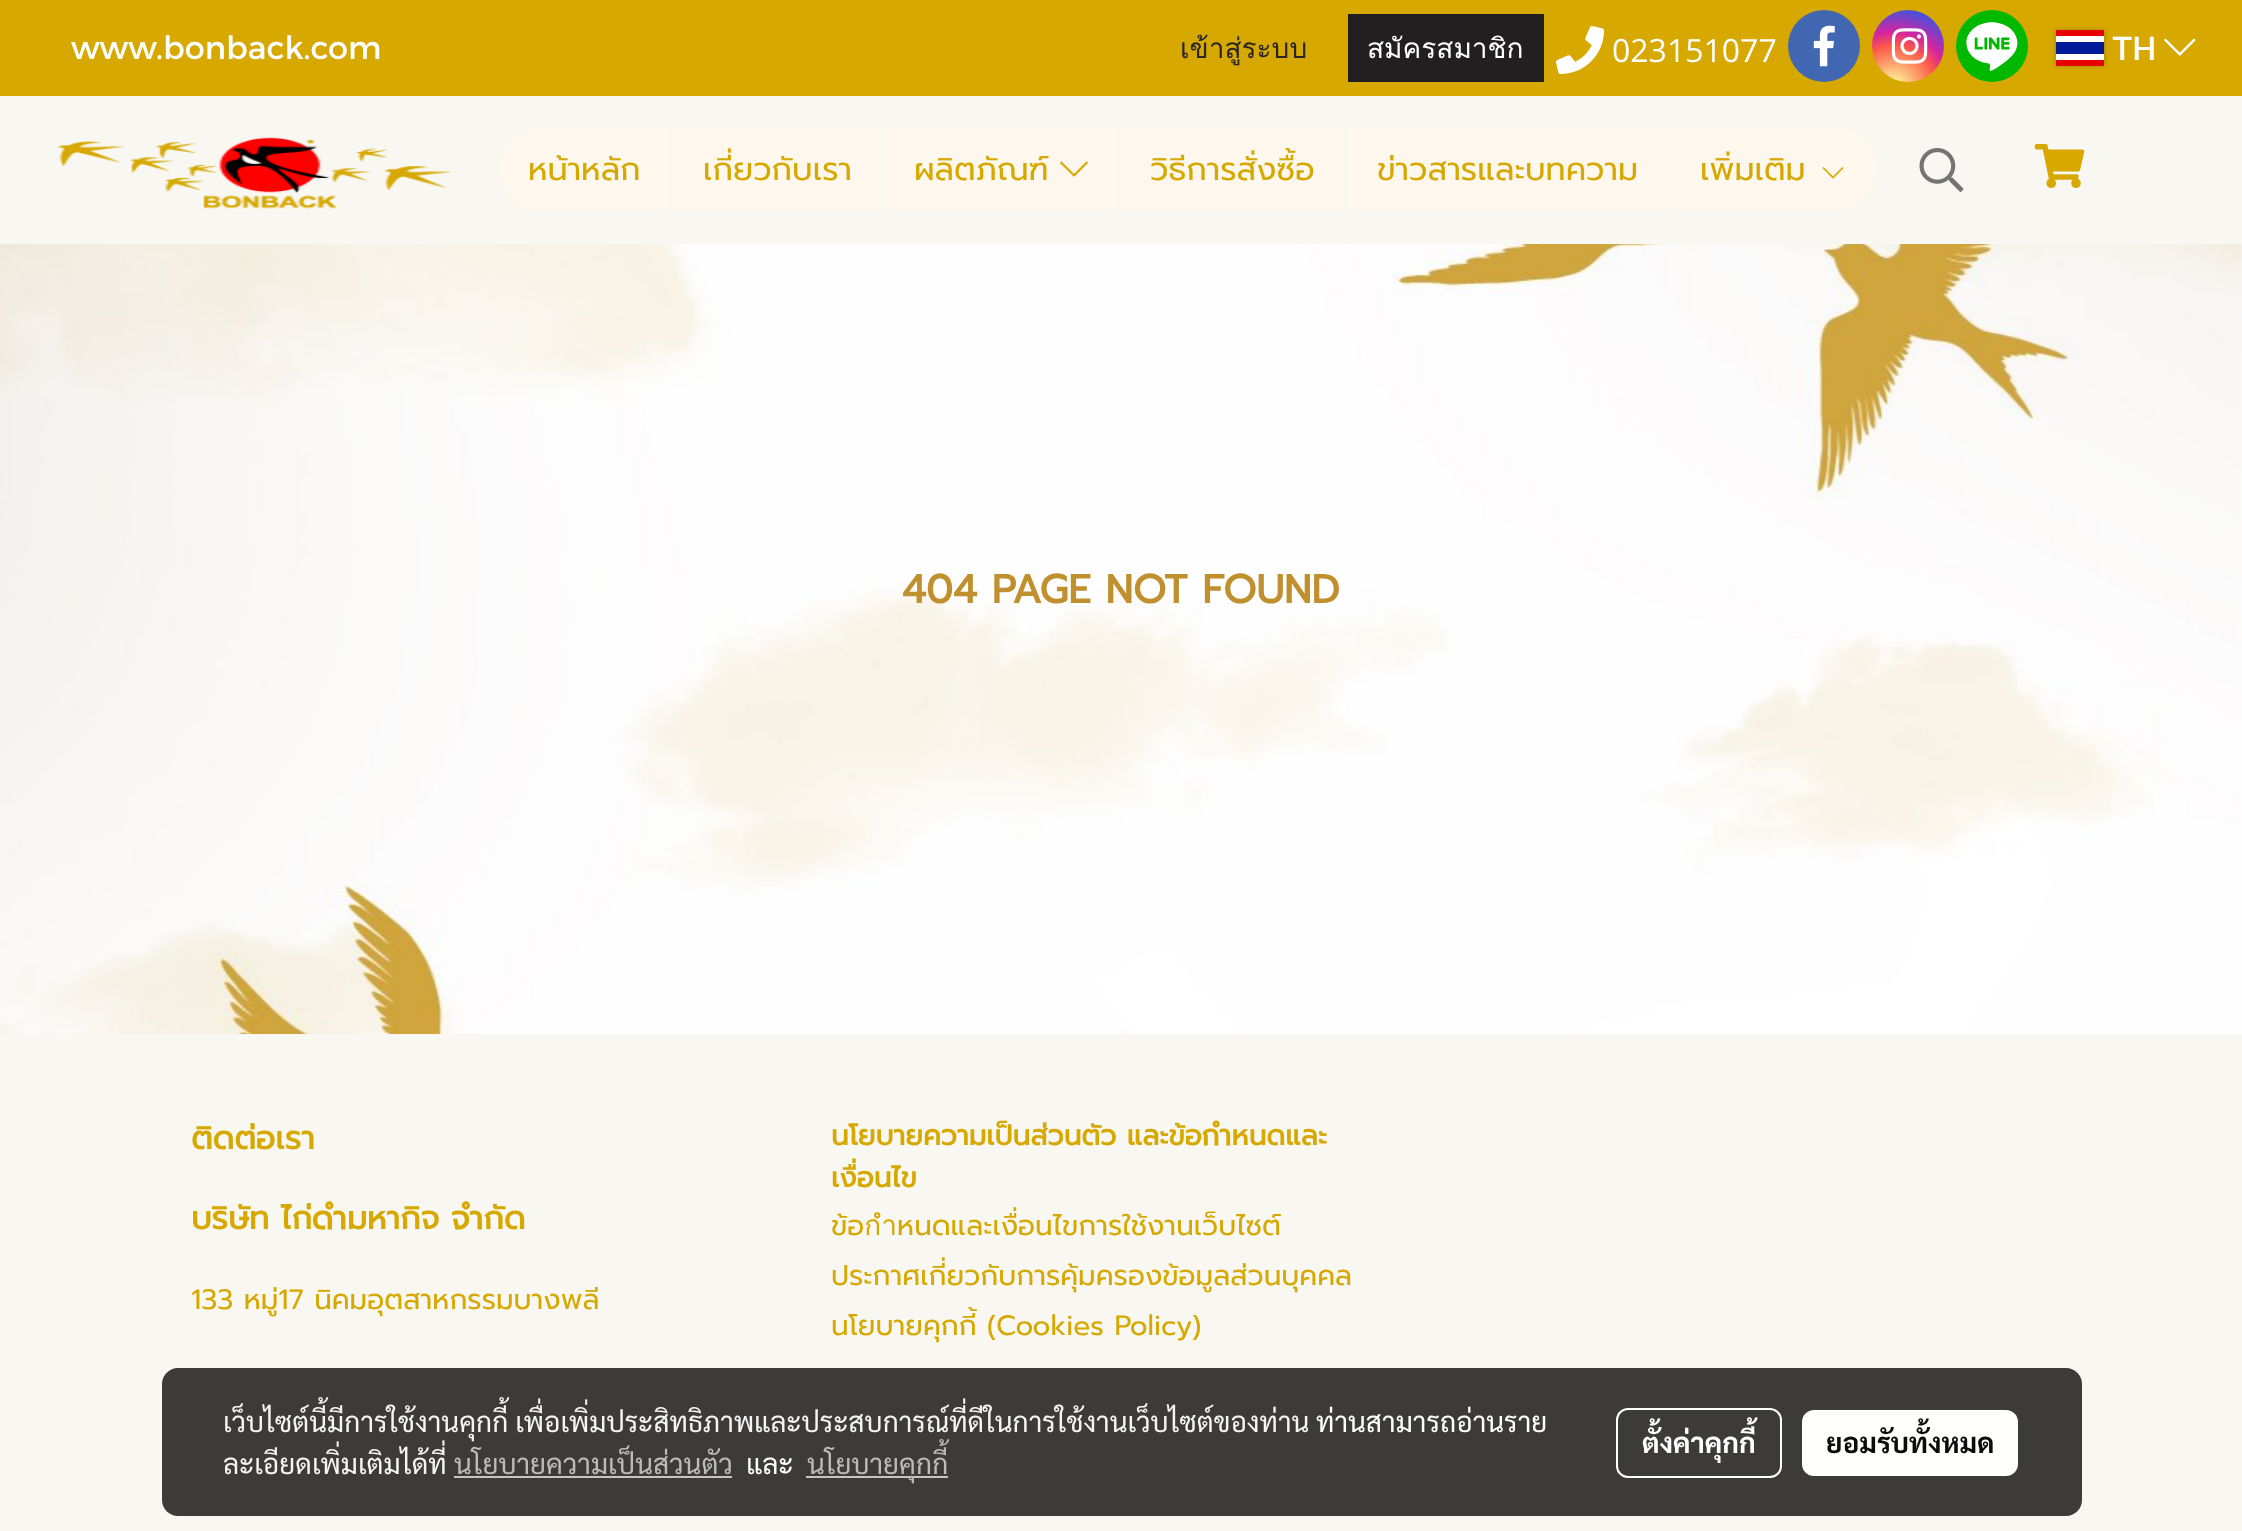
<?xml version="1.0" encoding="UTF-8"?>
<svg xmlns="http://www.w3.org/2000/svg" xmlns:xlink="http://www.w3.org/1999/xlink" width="2242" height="1531">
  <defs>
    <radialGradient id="g1" gradientUnits="userSpaceOnUse" cx="1894" cy="87" r="92"><stop offset="0" stop-color="#fdf497" /><stop offset="0.05" stop-color="#fdf497" /><stop offset="0.45" stop-color="#fd5949" /><stop offset="0.6" stop-color="#d6249f" /><stop offset="0.9" stop-color="#285aeb" /></radialGradient>
  </defs>
  <rect width="100%" height="100%" fill="#ffffff" />
  <image x="0" y="244" width="2242" height="790" xlink:href="image1.png" />
  <rect y="96" width="2242" height="148" fill="#f8f7f1" />
  <rect width="2242" height="96" fill="#d6a800" />
  <rect x="1348" y="14" width="196" height="68" fill="#231f20" />
  <image x="1556" y="26" width="48" height="48" xlink:href="image2.png" />
  <circle cx="1824" cy="46" r="36" fill="#4267b2" />
  <image x="1813" y="25" width="22" height="42" xlink:href="image3.png" />
  <circle cx="1908" cy="46" r="36" fill="url(#g1)" />
  <image x="1891" y="28" width="37" height="36" xlink:href="image4.png" />
  <circle cx="1992" cy="46" r="36" fill="#00b800" />
  <image x="1966" y="22" width="52" height="49" xlink:href="image5.png" />
  <rect x="2056" y="30" width="48" height="36" fill="#000000" fill-opacity="0.25" filter="blur(2px)" />
  <rect x="2056" y="36" width="48" height="24" fill="#ffffff" />
  <rect x="2056" y="42" width="48" height="12" fill="#001b9a" />
  <rect x="2056" y="30" width="48" height="6" fill="#e70000" />
  <rect x="2056" y="60" width="48" height="6" fill="#e70000" />
  <image x="2164" y="38" width="32" height="18" xlink:href="image6.png" />
  <image x="57" y="137" width="394" height="72" xlink:href="image7.png" />
  <path d="M 540 128 h 130 v 84 h -130 c -23 0 -42 -19 -42 -42 c 0 -23 19 -42 42 -42 z" fill="#fef7ed" />
  <rect x="672" y="128" width="210" height="84" fill="#fef7ed" />
  <rect x="884" y="128" width="234" height="84" fill="#fef7ed" />
  <image x="1060" y="161" width="28" height="16" xlink:href="image8.png" />
  <rect x="1120" y="128" width="224" height="84" fill="#fef7ed" />
  <rect x="1346" y="128" width="322" height="84" fill="#fef7ed" />
  <path d="M 1670 128 h 166 c 23 0 42 19 42 42 c 0 23 -19 42 -42 42 h -166 z" fill="#fef7ed" />
  <image x="1822" y="167" width="22" height="12" xlink:href="image9.png" />
  <image x="1919" y="148" width="45" height="44" xlink:href="image10.png" />
  <image x="2034" y="144" width="51" height="44" xlink:href="image11.png" />
  <rect y="1034" width="2242" height="497" fill="#f8f7f1" />
  <rect x="162" y="1368" width="1920" height="148" rx="16" fill="#000000" fill-opacity="0.76" />
  <rect x="454" y="1476" width="278" height="2" fill="#c5c5c4" />
  <rect x="806" y="1476" width="142" height="2" fill="#c5c5c4" />
  <rect x="1617" y="1409" width="164" height="68" rx="11" fill="none" stroke="#fffffe" stroke-width="2" />
  <rect x="1802" y="1410" width="216" height="66" rx="12" fill="#fffffe" />
  <text x="71" y="59" style="font-family: Montserrat; font-size: 32px; fill: #ffffff">www.bonback.com</text>
  <text x="1180" y="58" style="font-family: Loma; font-size: 28px; fill: #28262b">เข้าสู่ระบบ</text>
  <text x="1367" y="58" style="font-family: Loma; font-size: 28px; fill: #ffffff">สมัครสมาชิก</text>
  <text x="1612" y="62" style="font-family: Open Sans; font-size: 32px; fill: #ffffff">023151077</text>
  <text x="2112" y="60" style="font-family: Kanit; font-size: 36px; fill: #ffffff">TH</text>
  <text x="528" y="180" style="font-family: Prompt; font-size: 32px; fill: #d6a800">หน้าหลัก</text>
  <text x="703" y="180" style="font-family: Prompt; font-size: 32px; fill: #d6a800">เกี่ยวกับเรา</text>
  <text x="914" y="180" style="font-family: Prompt; font-size: 32px; fill: #d6a800">ผลิตภัณฑ์</text>
  <text x="1150" y="180" style="font-family: Prompt; font-size: 32px; fill: #d6a800">วิธีการสั่งซื้อ</text>
  <text x="1377" y="180" style="font-family: Prompt; font-size: 32px; fill: #d6a800">ข่าวสารและบทความ</text>
  <text x="1700" y="180" style="font-family: Prompt; font-size: 32px; fill: #d6a800">เพิ่มเติม</text>
  <text x="902" y="603" style="font-family: Prompt; font-size: 40px; font-weight: bold; fill: #c0902e">404 PAGE NOT FOUND</text>
  <text x="191" y="1149" style="font-family: Prompt; font-size: 32px; font-weight: bold; fill: #d6a800">ติดต่อเรา</text>
  <text x="191" y="1229" style="font-family: Prompt; font-size: 32px; font-weight: bold; fill: #d6a800">บริษัท ไก่ดำมหากิจ จำกัด</text>
  <text x="191" y="1309" style="font-family: Prompt; font-size: 28px; fill: #d6a800">133 หมู่17 นิคมอุตสาหกรรมบางพลี</text>
  <text x="831" y="1145" style="font-family: Prompt; font-size: 28px; font-weight: bold; fill: #d6a800">นโยบายความเป็นส่วนตัว และข้อกำหนดและ</text>
  <text x="831" y="1187" style="font-family: Prompt; font-size: 28px; font-weight: bold; fill: #d6a800">เงื่อนไข</text>
  <text x="831" y="1235" style="font-family: Prompt; font-size: 28px; fill: #d6a800">ข้อกำหนดและเงื่อนไขการใช้งานเว็บไซต์</text>
  <text x="831" y="1285" style="font-family: Prompt; font-size: 28px; fill: #d6a800">ประกาศเกี่ยวกับการคุ้มครองข้อมูลส่วนบุคคล</text>
  <text x="831" y="1335" style="font-family: Prompt; font-size: 28px; fill: #d6a800">นโยบายคุกกี้ (Cookies Policy)</text>
  <text x="223" y="1432" style="font-family: Sarabun; font-size: 28px; fill: #f5f5f5">เว็บไซต์นี้มีการใช้งานคุกกี้ เพื่อเพิ่มประสิทธิภาพและประสบการณ์ที่ดีในการใช้งานเว็บไซต์ของท่าน</text>
  <text x="1316" y="1432" style="font-family: Sarabun; font-size: 28px; fill: #ffffff">ท่านสามารถอ่านราย</text>
  <text x="223" y="1474" style="font-family: Sarabun; font-size: 28px; fill: #f5f5f5">ละเอียดเพิ่มเติมได้ที่</text>
  <text x="454" y="1474" style="font-family: Sarabun; font-size: 28px; fill: #bbbbbb">นโยบายความเป็นส่วนตัว</text>
  <text x="746" y="1474" style="font-family: Sarabun; font-size: 28px; fill: #ffffff">และ</text>
  <text x="807" y="1474" style="font-family: Sarabun; font-size: 28px; fill: #bbbbbb">นโยบายคุกกี้</text>
  <text x="1642" y="1453" style="font-family: Sarabun; font-size: 28px; font-weight: bold; fill: #ffffff">ตั้งค่าคุกกี้</text>
  <text x="1826" y="1453" style="font-family: Sarabun; font-size: 28px; font-weight: bold; fill: #0c0c0c">ยอมรับทั้งหมด</text>
</svg>
